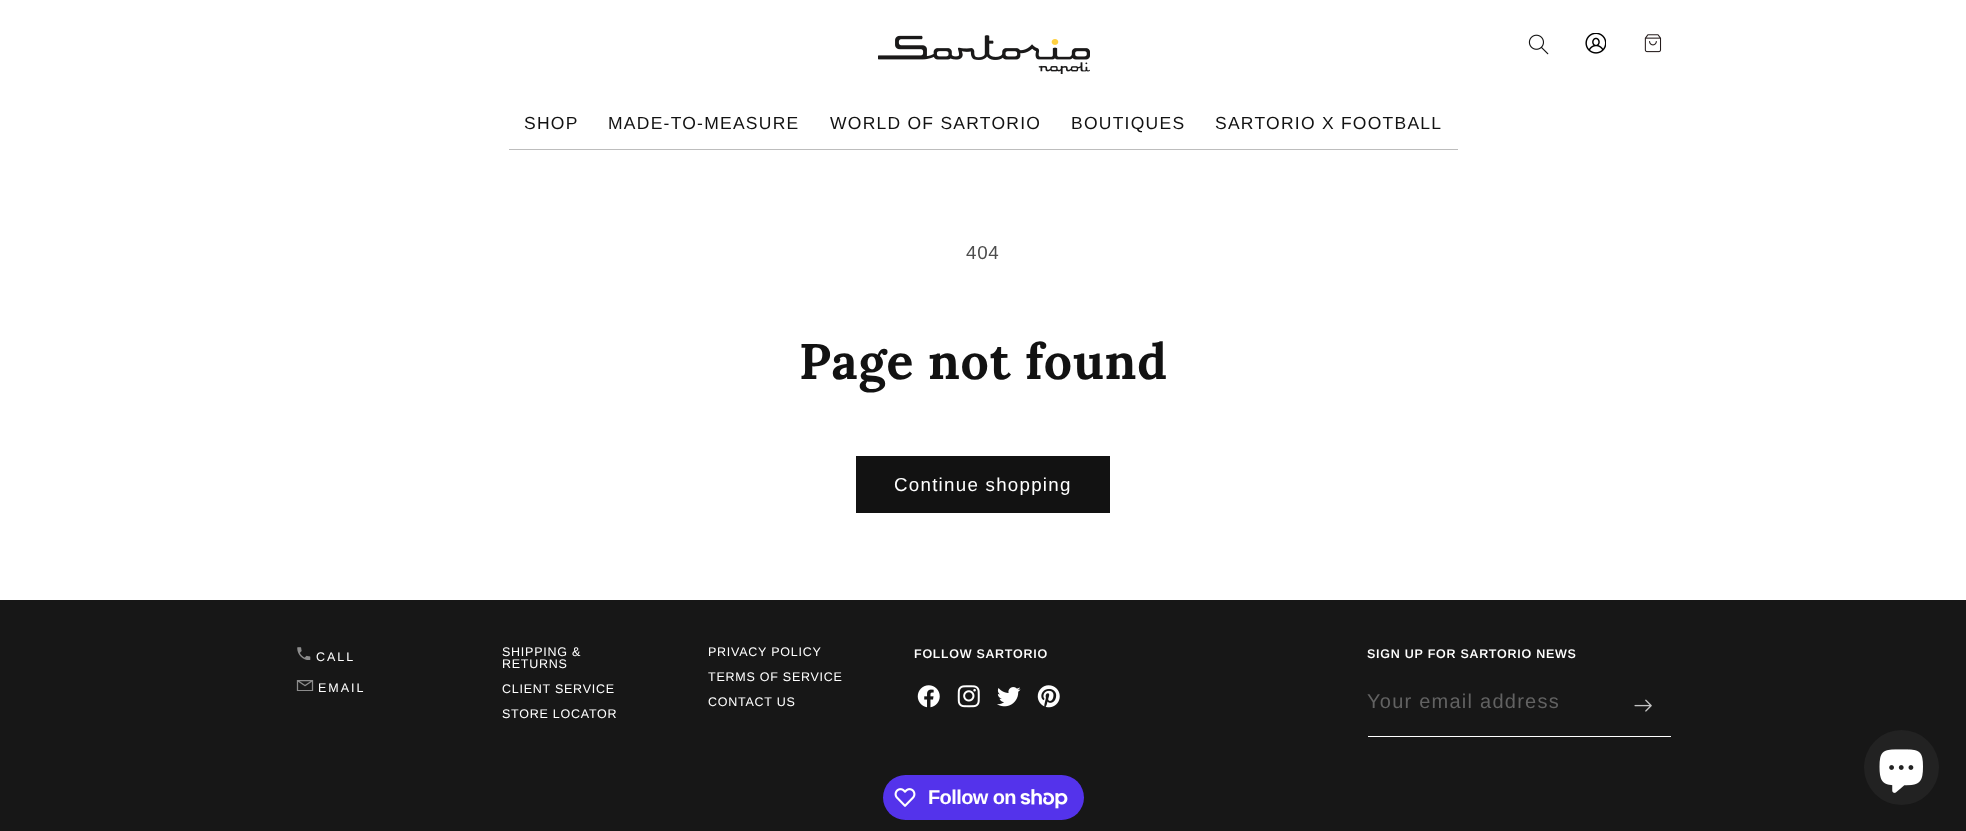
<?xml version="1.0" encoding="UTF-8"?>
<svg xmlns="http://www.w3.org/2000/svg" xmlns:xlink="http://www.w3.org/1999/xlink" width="1966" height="831">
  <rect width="100%" height="100%" fill="#ffffff" />
  <image x="878" y="35" width="212" height="39" xlink:href="image1.png" />
  <image x="1528" y="34" width="21" height="21" xlink:href="image2.png" />
  <image x="1585" y="33" width="21" height="21" xlink:href="image3.png" />
  <image x="1644" y="34" width="18" height="19" xlink:href="image4.png" />
  <rect x="509" y="149" width="949" height="1" fill="#bdbdbd" />
  <rect x="856" y="456" width="254" height="57" fill="#121212" />
  <rect y="600" width="1966" height="231" fill="#171717" />
  <image x="297" y="647" width="14" height="13" xlink:href="image5.png" />
  <image x="296" y="680" width="18" height="11" xlink:href="image6.png" />
  <image x="917" y="685" width="23" height="23" xlink:href="image7.png" />
  <image x="957" y="685" width="23" height="23" xlink:href="image8.png" />
  <image x="997" y="687" width="24" height="20" xlink:href="image9.png" />
  <image x="1037" y="685" width="23" height="23" xlink:href="image10.png" />
  <image x="1634" y="699" width="18" height="13" xlink:href="image11.png" />
  <rect x="1368" y="736" width="303" height="1" fill="#ffffff" />
  <rect x="883" y="775" width="201" height="45" rx="22.5" fill="#5433eb" />
  <image x="894" y="788" width="22" height="19" xlink:href="image12.png" />
  <image x="1020" y="789" width="48" height="20" xlink:href="image13.png" />
  <circle cx="1901.5" cy="767.5" r="37.5" fill="#222222" />
  <image x="1879" y="749" width="44" height="44" xlink:href="image14.png" />
  <text x="524" y="129" style="font-family: Arimo; font-size: 17.5px; letter-spacing: 1.25px; fill: #121212">SHOP</text>
  <text x="608" y="129" style="font-family: Arimo; font-size: 17.5px; letter-spacing: 1.25px; fill: #121212">MADE-TO-MEASURE</text>
  <text x="830" y="129" style="font-family: Arimo; font-size: 17.5px; letter-spacing: 1.25px; fill: #121212">WORLD OF SARTORIO</text>
  <text x="1071" y="129" style="font-family: Arimo; font-size: 17.5px; letter-spacing: 1.25px; fill: #121212">BOUTIQUES</text>
  <text x="1215" y="129" style="font-family: Arimo; font-size: 17.5px; letter-spacing: 1.25px; fill: #121212">SARTORIO X FOOTBALL</text>
  <text x="966" y="259" style="font-family: Arimo; font-size: 18.75px; letter-spacing: 0.75px; fill: #4d4d4d">404</text>
  <text x="799" y="379" style="font-family: Lora; font-size: 50px; font-weight: bold; letter-spacing: 0.75px; fill: #121212">Page not found</text>
  <text x="894" y="491" style="font-family: Arimo; font-size: 18.75px; letter-spacing: 1.25px; fill: #ffffff">Continue shopping</text>
  <text x="316" y="661" style="font-family: Arimo; font-size: 12.5px; letter-spacing: 2px; fill: #ffffff">CALL</text>
  <text x="318" y="692" style="font-family: Arimo; font-size: 12.5px; letter-spacing: 2px; fill: #ffffff">EMAIL</text>
  <text x="502" y="656" style="font-family: Arimo; font-size: 12.5px; letter-spacing: 0.75px; fill: #ffffff">SHIPPING &amp;</text>
  <text x="502" y="668" style="font-family: Arimo; font-size: 12.5px; letter-spacing: 0.75px; fill: #ffffff">RETURNS</text>
  <text x="502" y="693" style="font-family: Arimo; font-size: 12.5px; letter-spacing: 0.75px; fill: #ffffff">CLIENT SERVICE</text>
  <text x="502" y="718" style="font-family: Arimo; font-size: 12.5px; letter-spacing: 0.75px; fill: #ffffff">STORE LOCATOR</text>
  <text x="708" y="656" style="font-family: Arimo; font-size: 12.5px; letter-spacing: 0.75px; fill: #ffffff">PRIVACY POLICY</text>
  <text x="708" y="681" style="font-family: Arimo; font-size: 12.5px; letter-spacing: 0.75px; fill: #ffffff">TERMS OF SERVICE</text>
  <text x="708" y="706" style="font-family: Arimo; font-size: 12.5px; letter-spacing: 0.75px; fill: #ffffff">CONTACT US</text>
  <text x="914" y="658" style="font-family: Arimo; font-size: 12.5px; font-weight: 600; letter-spacing: 0.75px; fill: #ffffff">FOLLOW SARTORIO</text>
  <text x="1367" y="658" style="font-family: Arimo; font-size: 12.5px; font-weight: 600; letter-spacing: 0.75px; fill: #ffffff">SIGN UP FOR SARTORIO NEWS</text>
  <text x="1367" y="708" style="font-family: Arimo; font-size: 20px; letter-spacing: 1.25px; fill: #626262">Your email address</text>
  <text x="928" y="804" style="font-family: Liberation Sans; font-size: 20px; font-weight: bold; letter-spacing: -0.6px; fill: #ffffff">Follow on</text>
</svg>
